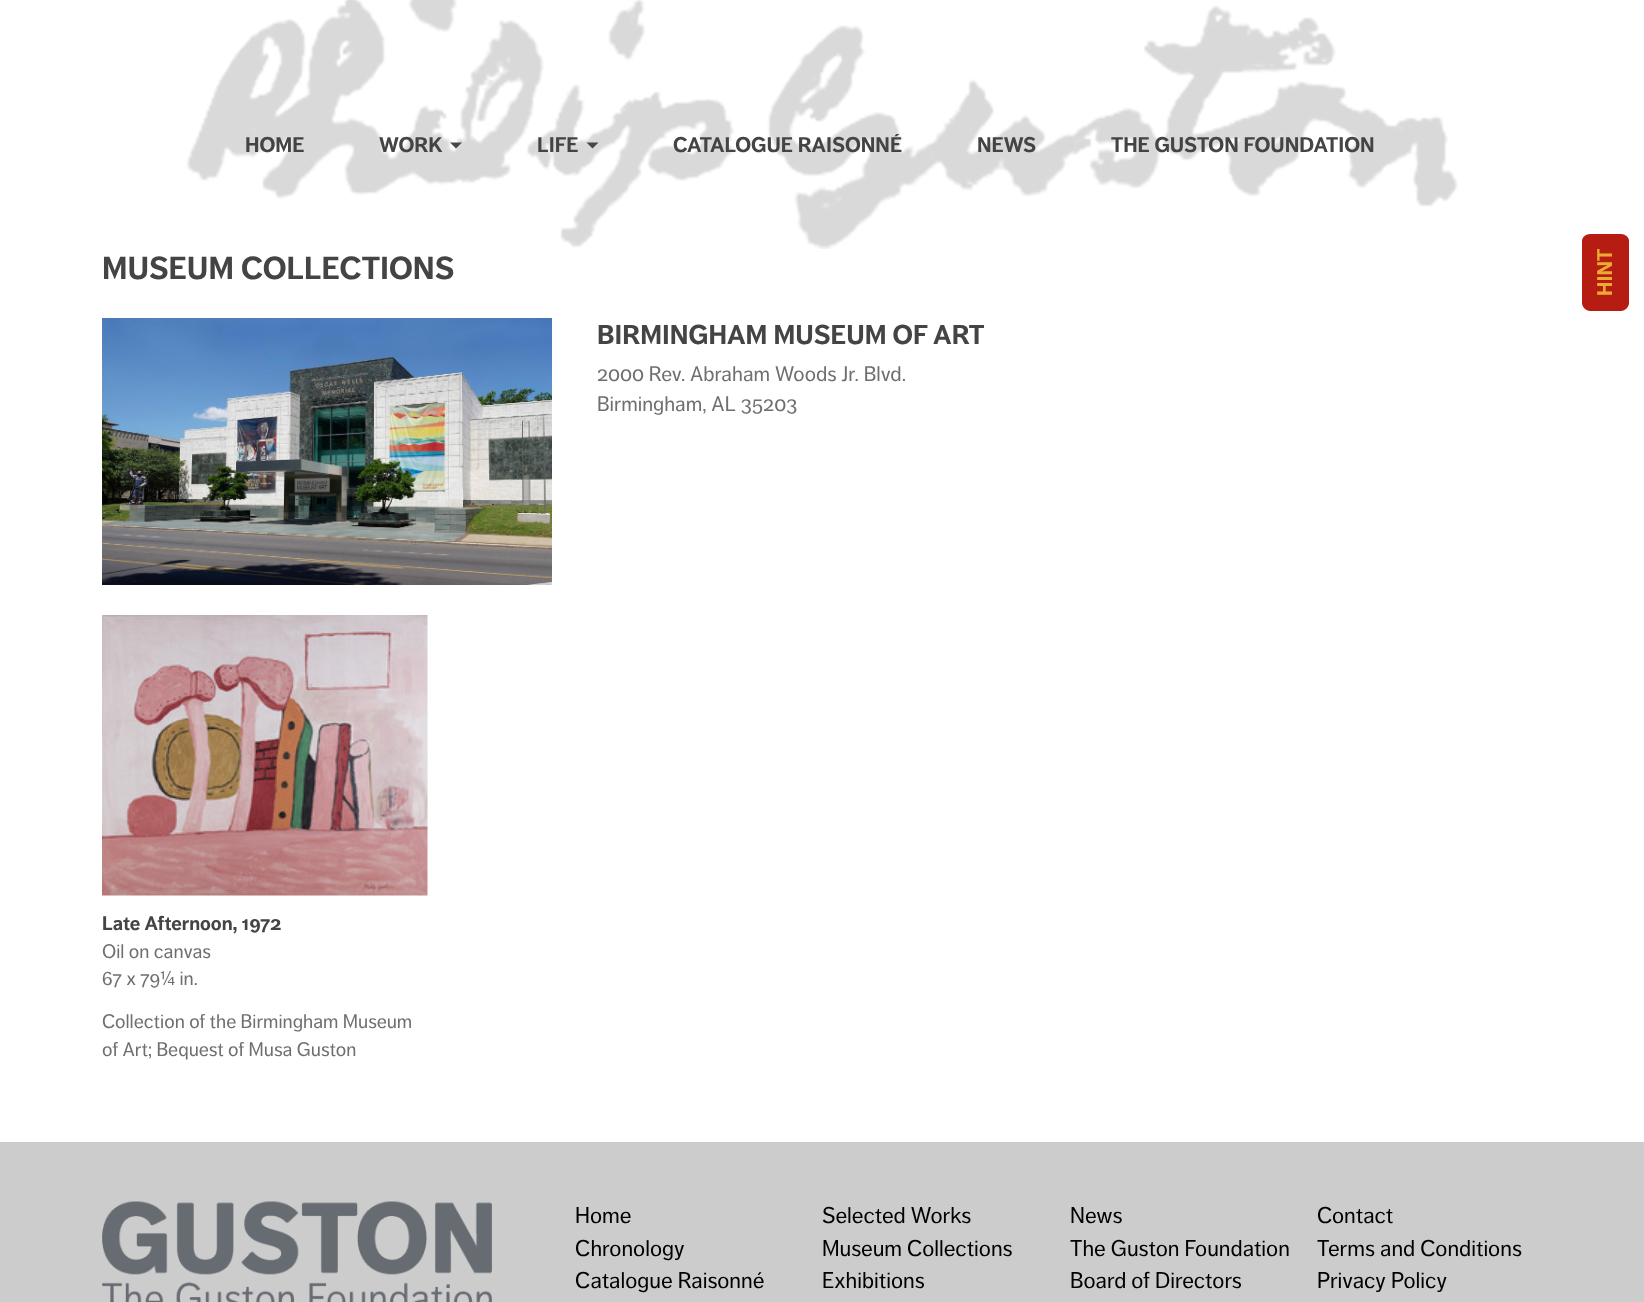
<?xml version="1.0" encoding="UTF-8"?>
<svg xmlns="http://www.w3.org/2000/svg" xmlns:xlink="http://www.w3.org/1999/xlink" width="1644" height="1302">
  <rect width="100%" height="100%" fill="#ffffff" />
  <image x="186" y="0" width="1272" height="249" xlink:href="image1.png" />
  <path d="M 450 142.5 h 12 l -6 6 z" fill="#474747" />
  <path d="M 586.5 142.5 h 12 l -6 6 z" fill="#474747" />
  <image x="102" y="318" width="450" height="267" xlink:href="image2.png" />
  <image x="102" y="615" width="326" height="281" xlink:href="image3.png" />
  <path d="M 1582 303 v -62 c 0 -4 4 -7 8 -7 h 31 c 4 0 8 3 8 7 v 62 c 0 4 -4 8 -8 8 h -31 c -4 0 -8 -4 -8 -8 z" fill="#b71c13" />
  <rect y="1142" width="1644" height="160" fill="#cccccc" />
  <image x="102" y="1201" width="390" height="101" xlink:href="image4.png" />
  <text x="245" y="152" style="font-family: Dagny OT; font-size: 21px; font-weight: bold; fill: #444444">HOME</text>
  <text x="379" y="152" style="font-family: Dagny OT; font-size: 21px; font-weight: bold; fill: #444444">WORK</text>
  <text x="537" y="152" style="font-family: Dagny OT; font-size: 21px; font-weight: bold; fill: #444444">LIFE</text>
  <text x="673" y="152" style="font-family: Dagny OT; font-size: 21px; font-weight: bold; fill: #444444">CATALOGUE RAISONNÉ</text>
  <text x="977" y="152" style="font-family: Dagny OT; font-size: 21px; font-weight: bold; fill: #444444">NEWS</text>
  <text x="1111" y="152" style="font-family: Dagny OT; font-size: 21px; font-weight: bold; fill: #444444">THE GUSTON FOUNDATION</text>
  <text x="102" y="279" style="font-family: Dagny OT; font-size: 31.5px; font-weight: bold; fill: #444444">MUSEUM COLLECTIONS</text>
  <text x="597" y="344" style="font-family: Dagny OT; font-size: 27px; font-weight: bold; fill: #444444">BIRMINGHAM MUSEUM OF ART</text>
  <text x="597" y="381" style="font-family: Dagny OT; font-size: 21px; fill: #6f6f6f">2000 Rev. Abraham Woods Jr. Blvd.</text>
  <text x="597" y="411" style="font-family: Dagny OT; font-size: 21px; fill: #6f6f6f">Birmingham, AL 35203</text>
  <text x="102" y="930" style="font-family: Dagny OT; font-size: 19.5px; font-weight: bold; fill: #444444">Late Afternoon, 1972</text>
  <text x="102" y="958" style="font-family: Dagny OT; font-size: 19.5px; fill: #6f6f6f">Oil on canvas</text>
  <text x="102" y="985" style="font-family: Dagny OT; font-size: 19.5px; fill: #6f6f6f">67 x 79¼ in.</text>
  <text x="102" y="1028" style="font-family: Dagny OT; font-size: 19.5px; fill: #6f6f6f">Collection of the Birmingham Museum</text>
  <text x="102" y="1056" style="font-family: Dagny OT; font-size: 19.5px; fill: #6f6f6f">of Art; Bequest of Musa Guston</text>
  <text x="1612" y="296" transform="rotate(-90 1612 296)" style="font-family: Dagny OT; font-size: 21px; font-weight: bold; fill: #eaab32">HINT</text>
  <text x="575" y="1223" style="font-family: Dagny OT; font-size: 22.5px; fill: #000000">Home</text>
  <text x="575" y="1256" style="font-family: Dagny OT; font-size: 22.5px; fill: #000000">Chronology</text>
  <text x="575" y="1288" style="font-family: Dagny OT; font-size: 22.5px; fill: #000000">Catalogue Raisonné</text>
  <text x="822" y="1223" style="font-family: Dagny OT; font-size: 22.5px; fill: #000000">Selected Works</text>
  <text x="822" y="1256" style="font-family: Dagny OT; font-size: 22.5px; fill: #000000">Museum Collections</text>
  <text x="822" y="1288" style="font-family: Dagny OT; font-size: 22.5px; fill: #000000">Exhibitions</text>
  <text x="1070" y="1223" style="font-family: Dagny OT; font-size: 22.5px; fill: #000000">News</text>
  <text x="1070" y="1256" style="font-family: Dagny OT; font-size: 22.5px; fill: #000000">The Guston Foundation</text>
  <text x="1070" y="1288" style="font-family: Dagny OT; font-size: 22.5px; fill: #000000">Board of Directors</text>
  <text x="1317" y="1223" style="font-family: Dagny OT; font-size: 22.5px; fill: #000000">Contact</text>
  <text x="1317" y="1256" style="font-family: Dagny OT; font-size: 22.5px; fill: #000000">Terms and Conditions</text>
  <text x="1317" y="1288" style="font-family: Dagny OT; font-size: 22.5px; fill: #000000">Privacy Policy</text>
</svg>
